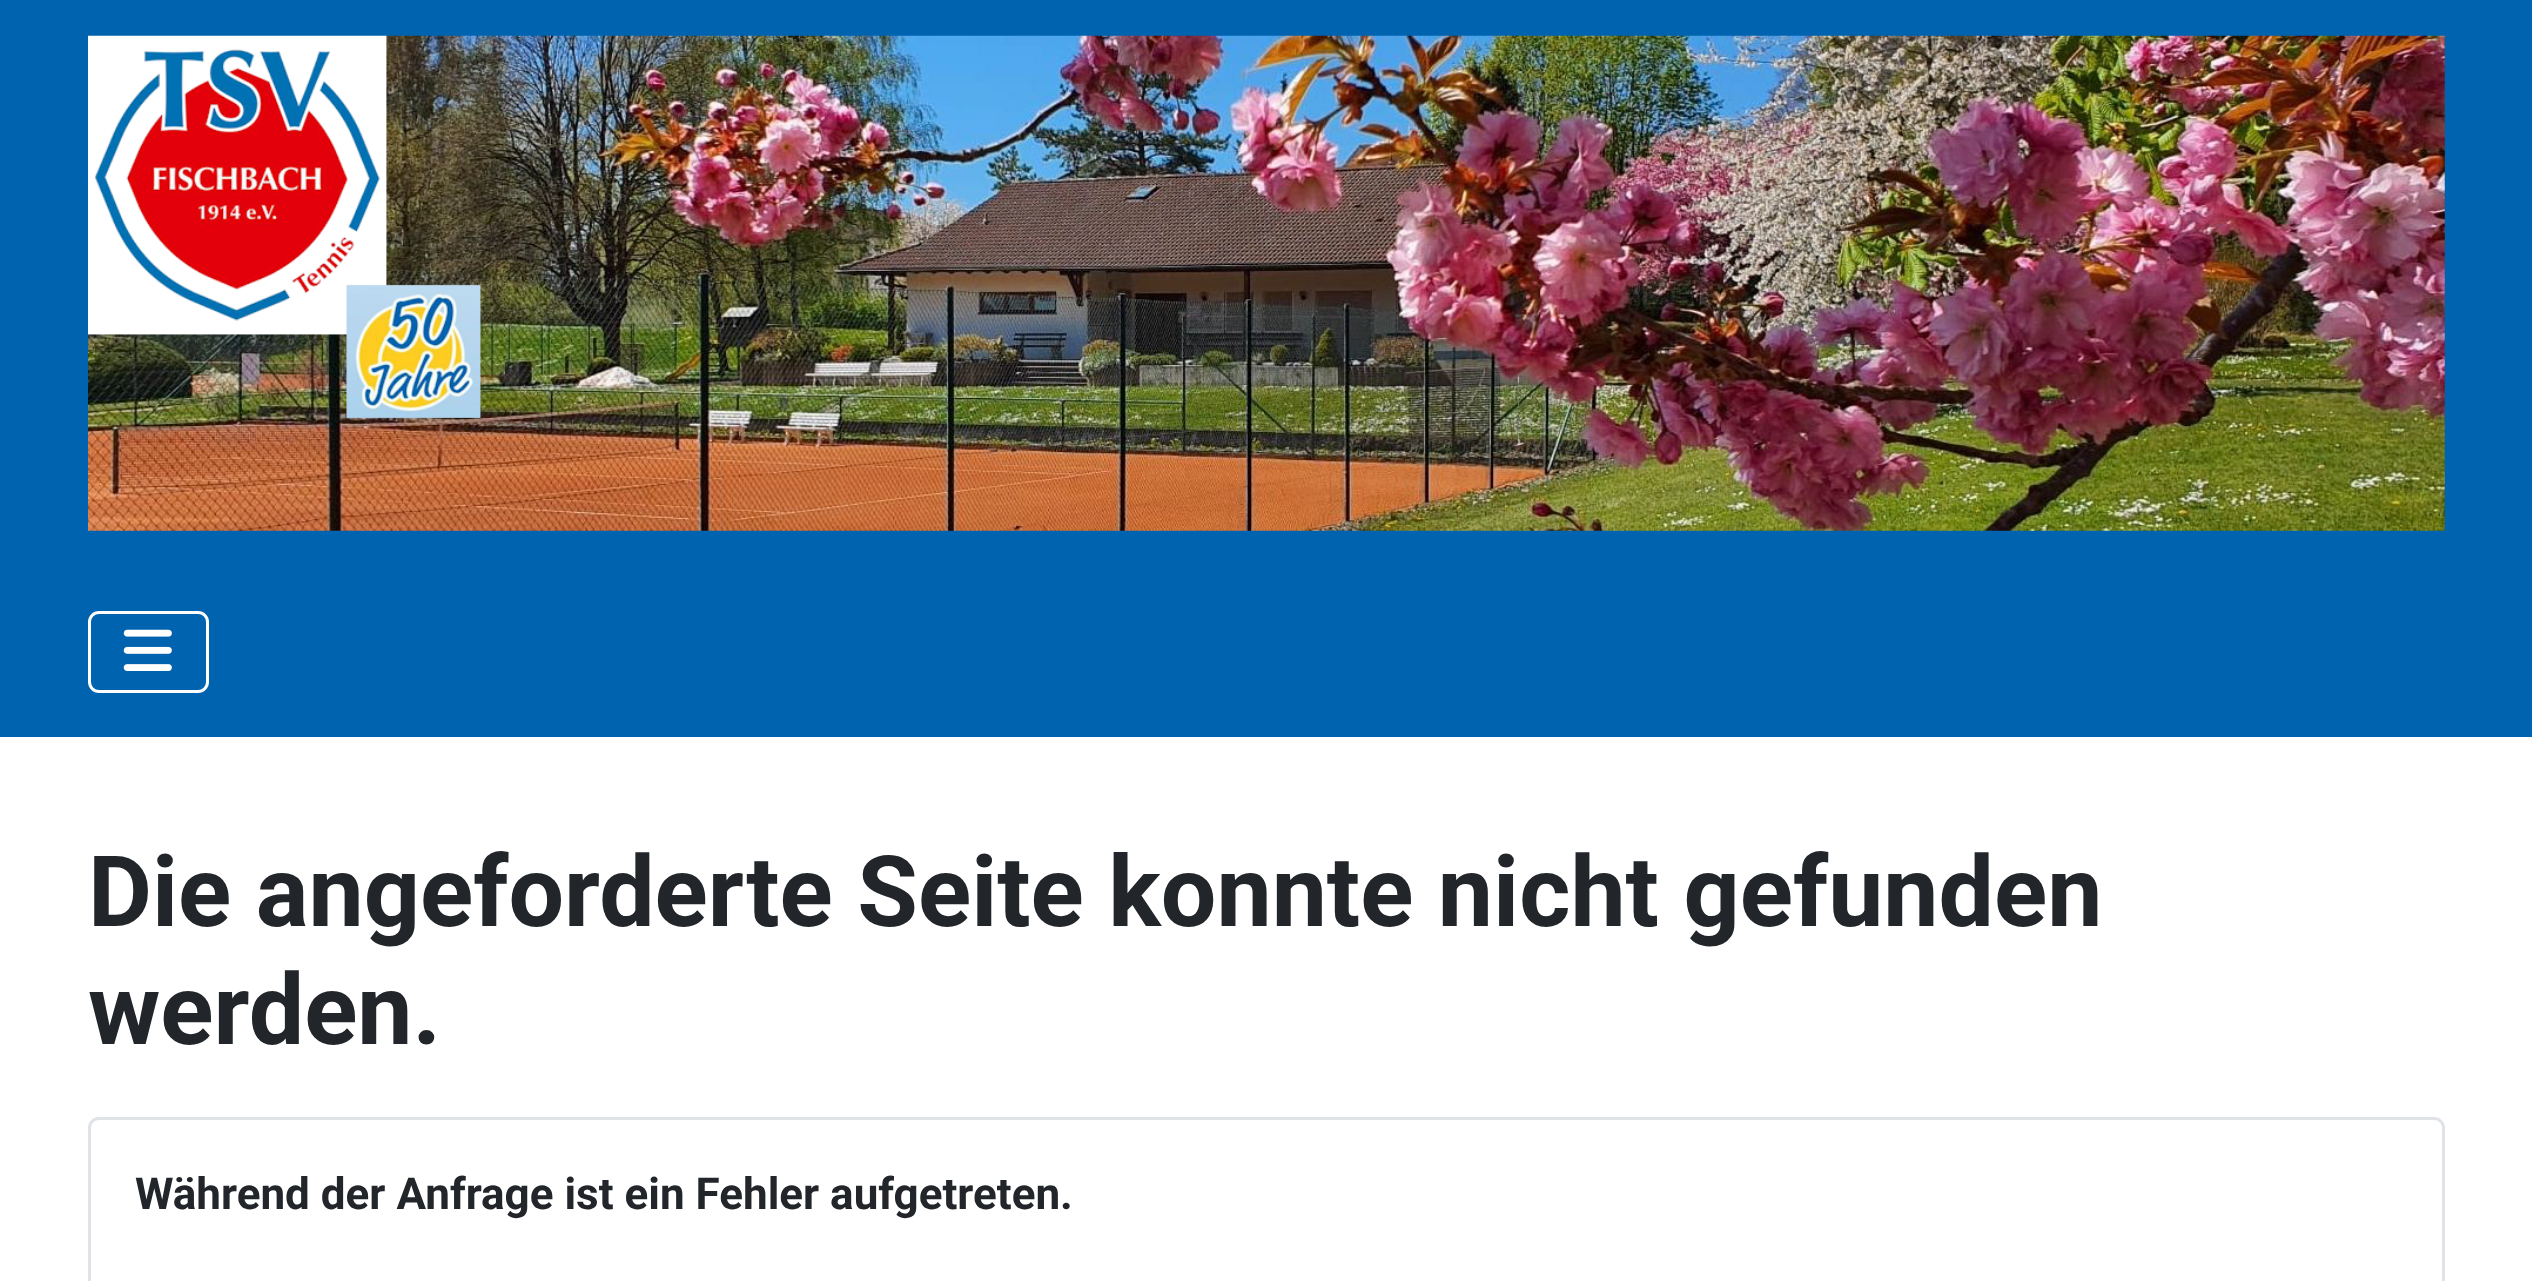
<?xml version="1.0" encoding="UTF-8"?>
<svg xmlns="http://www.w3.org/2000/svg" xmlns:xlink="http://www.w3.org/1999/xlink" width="2532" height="1281">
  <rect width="100%" height="100%" fill="#ffffff" />
  <rect width="2532" height="737" fill="#0063af" />
  <image x="88" y="35" width="2357" height="496" xlink:href="image1.png" />
  <rect x="89.5" y="612.5" width="118" height="79" rx="9.5" fill="none" stroke="#ffffff" stroke-width="3" />
  <image x="123" y="629" width="49" height="42" xlink:href="image2.png" />
  <rect x="89.5" y="1118.5" width="2354" height="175" rx="9.5" fill="none" stroke="#dfe3e7" stroke-width="3" />
  <text x="88" y="926" style="font-family: Roboto; font-size: 98.5px; font-weight: bold; fill: #22262a">Die angeforderte Seite konnte nicht gefunden</text>
  <text x="88" y="1044" style="font-family: Roboto; font-size: 98.5px; font-weight: bold; fill: #22262a">werden.</text>
  <text x="135" y="1209" style="font-family: Roboto; font-size: 44px; font-weight: bold; fill: #22262a">Während der Anfrage ist ein Fehler aufgetreten.</text>
</svg>
